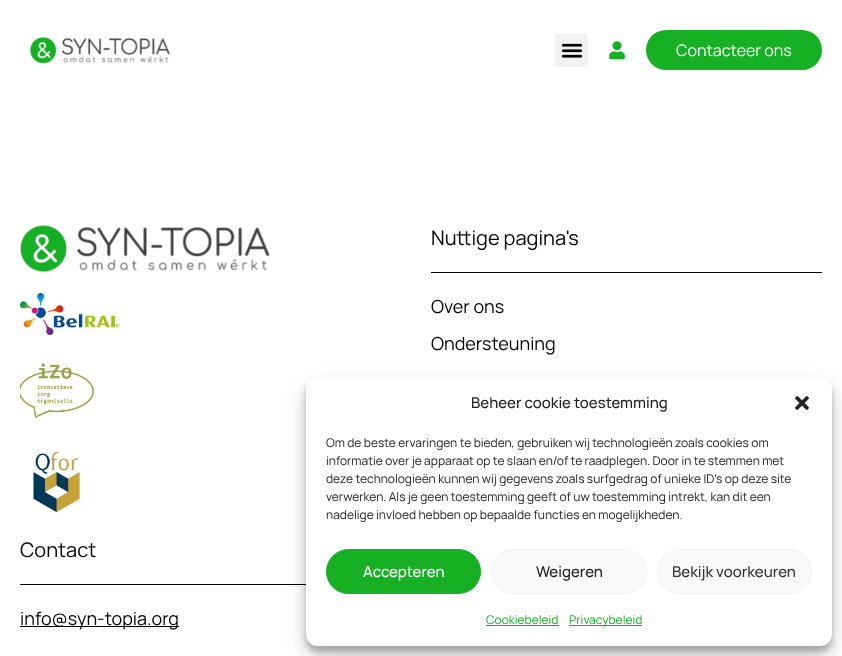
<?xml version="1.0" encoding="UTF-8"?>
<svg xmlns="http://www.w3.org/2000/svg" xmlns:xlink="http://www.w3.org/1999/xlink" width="842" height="656">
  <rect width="100%" height="100%" fill="#ffffff" />
  <image x="30" y="37" width="141" height="27" xlink:href="image1.png" />
  <rect x="555" y="34" width="33" height="33" rx="3" fill="#f2f2f2" />
  <image x="561" y="43" width="22" height="15" xlink:href="image2.png" />
  <image x="609" y="41" width="16" height="19" xlink:href="image3.png" />
  <rect x="646" y="30" width="176" height="40" rx="20" fill="#17b025" />
  <image x="20" y="225" width="250" height="48" xlink:href="image4.png" />
  <image x="20" y="293" width="100" height="42" xlink:href="image5.png" />
  <image x="20" y="363" width="74" height="55" xlink:href="image6.png" />
  <image x="33" y="451" width="47" height="62" xlink:href="image7.png" />
  <rect x="431" y="272" width="391" height="1" fill="#000000" />
  <rect x="20" y="584" width="286" height="1" fill="#000000" />
  <rect x="20" y="626" width="159" height="1" fill="#000000" />
  <rect x="306" y="383" width="526" height="269" rx="12" fill="#000000" fill-opacity="0.23" filter="blur(3px)" />
  <rect x="306" y="387" width="526" height="269" rx="12" fill="#000000" fill-opacity="0.19" filter="blur(10px)" />
  <rect x="306" y="377" width="526" height="269" rx="12" fill="#ffffff" />
  <image x="795" y="396" width="14" height="14" xlink:href="image8.png" />
  <rect x="326.5" y="549.5" width="154" height="44" rx="22" fill="#17b025" stroke="#17b025" />
  <rect x="491.5" y="549.5" width="155" height="44" rx="22" fill="#f9f9f9" stroke="#f2f2f2" />
  <rect x="657.5" y="549.5" width="154" height="44" rx="22" fill="#f9f9f9" stroke="#f2f2f2" />
  <rect x="486" y="625" width="73" height="1" fill="#17b025" />
  <rect x="569" y="625" width="73" height="1" fill="#17b025" />
  <text x="676" y="56" style="font-family: Manrope; font-size: 16px; fill: #ffffff">Contacteer ons</text>
  <text x="431" y="245" style="font-family: Manrope; font-size: 20px; fill: #000000">Nuttige pagina's</text>
  <text x="431" y="313" style="font-family: Manrope; font-size: 18px; fill: #000000">Over ons</text>
  <text x="431" y="350" style="font-family: Manrope; font-size: 18px; fill: #000000">Ondersteuning</text>
  <text x="20" y="557" style="font-family: Manrope; font-size: 20px; fill: #000000">Contact</text>
  <text x="20" y="625" style="font-family: Manrope; font-size: 18px; fill: #000000">info@syn-topia.org</text>
  <text x="471" y="408" style="font-family: Manrope; font-size: 15px; font-weight: 500; fill: #222222">Beheer cookie toestemming</text>
  <text x="326" y="447" style="font-family: Manrope; font-size: 12px; fill: #222222">Om de beste ervaringen te bieden, gebruiken wij technologieën zoals cookies om</text>
  <text x="326" y="465" style="font-family: Manrope; font-size: 12px; fill: #222222">informatie over je apparaat op te slaan en/of te raadplegen. Door in te stemmen met</text>
  <text x="326" y="483" style="font-family: Manrope; font-size: 12px; fill: #222222">deze technologieën kunnen wij gegevens zoals surfgedrag of unieke ID's op deze site</text>
  <text x="326" y="501" style="font-family: Manrope; font-size: 12px; fill: #222222">verwerken. Als je geen toestemming geeft of uw toestemming intrekt, kan dit een</text>
  <text x="326" y="519" style="font-family: Manrope; font-size: 12px; fill: #222222">nadelige invloed hebben op bepaalde functies en mogelijkheden.</text>
  <text x="363" y="577" style="font-family: Manrope; font-size: 15px; font-weight: 500; fill: #ffffff">Accepteren</text>
  <text x="536" y="577" style="font-family: Manrope; font-size: 15px; font-weight: 500; fill: #222222">Weigeren</text>
  <text x="672" y="577" style="font-family: Manrope; font-size: 15px; font-weight: 500; fill: #333333">Bekijk voorkeuren</text>
  <text x="486" y="624" style="font-family: Manrope; font-size: 12px; fill: #17b025">Cookiebeleid</text>
  <text x="569" y="624" style="font-family: Manrope; font-size: 12px; fill: #17b025">Privacybeleid</text>
</svg>
